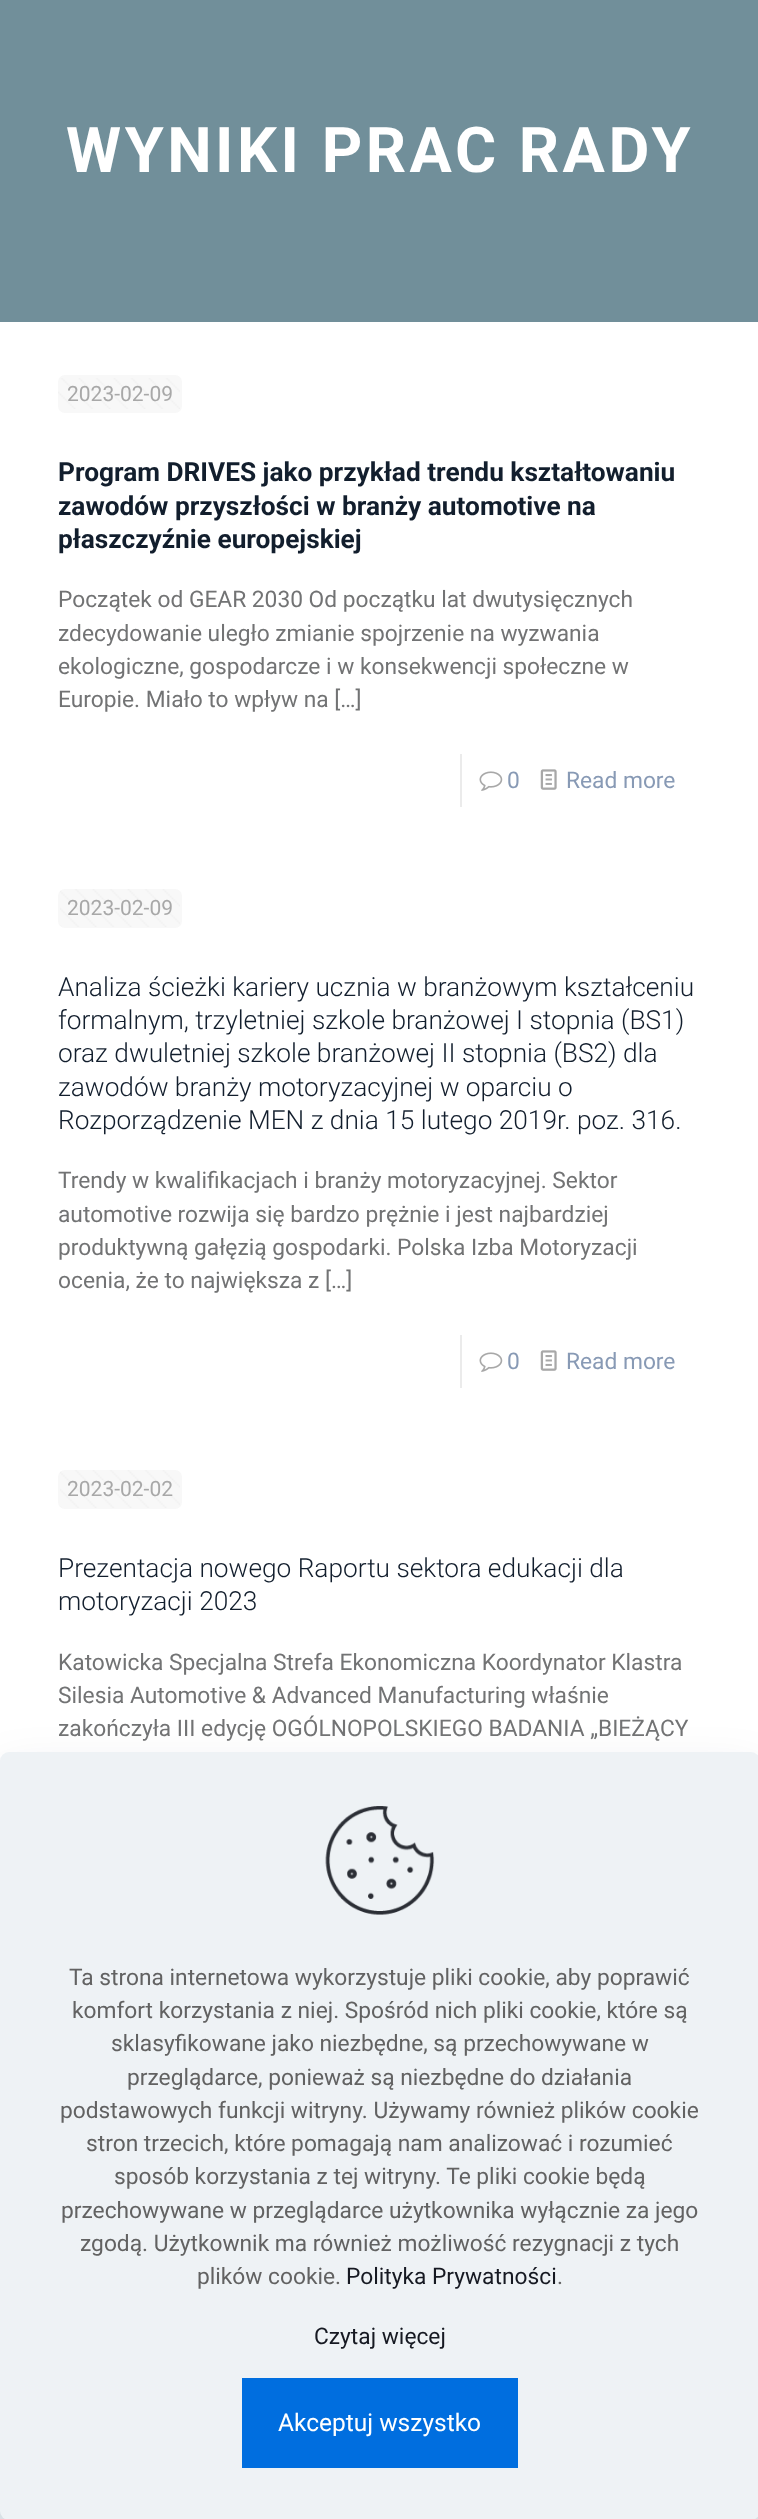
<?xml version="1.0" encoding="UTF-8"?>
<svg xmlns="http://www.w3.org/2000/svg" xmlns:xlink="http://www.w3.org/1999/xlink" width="758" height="2519">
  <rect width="100%" height="100%" fill="#ffffff" />
  <rect width="758" height="322" fill="#718f9a" />
  <rect x="58" y="375" width="124" height="38" rx="7" fill="#f8f8f8" />
  <image x="58" y="378" width="122" height="31" xlink:href="image1.png" />
  <rect x="460" y="754" width="2" height="53" fill="#ebebeb" />
  <image x="479" y="771" width="24" height="20" xlink:href="image2.png" />
  <image x="540" y="769" width="17" height="21" xlink:href="image3.png" />
  <rect x="58" y="889" width="124" height="39" rx="7" fill="#f8f8f8" />
  <image x="60" y="889" width="120" height="38" xlink:href="image4.png" />
  <rect x="460" y="1335" width="2" height="53" fill="#ebebeb" />
  <image x="479" y="1352" width="24" height="20" xlink:href="image2.png" />
  <image x="540" y="1350" width="17" height="21" xlink:href="image3.png" />
  <rect x="58" y="1470" width="124" height="39" rx="7" fill="#f8f8f8" />
  <image x="60" y="1470" width="120" height="38" xlink:href="image4.png" />
  <rect y="2511" width="758" height="8" fill="#e6edf1" />
  <rect y="1778" width="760" height="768" rx="9" fill="#010727" fill-opacity="0.13" filter="blur(26px)" />
  <rect y="1752" width="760" height="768" rx="9" fill="#eef2f5" />
  <image x="325" y="1806" width="110" height="109" xlink:href="image5.png" />
  <rect x="242" y="2378" width="276" height="90" fill="#006edf" />
  <text x="66" y="172" style="font-family: Roboto; font-size: 63px; font-weight: bold; letter-spacing: 3.5px; fill: #ffffff">WYNIKI PRAC RADY</text>
  <text x="67" y="401" style="font-family: Roboto; font-size: 21px; fill: #a8a8a8">2023-02-09</text>
  <text x="58" y="481" style="font-family: Roboto; font-size: 26.25px; font-weight: bold; fill: #121e2d">Program DRIVES jako przykład trendu kształtowaniu</text>
  <text x="58" y="515" style="font-family: Roboto; font-size: 26.25px; font-weight: bold; fill: #121e2d">zawodów przyszłości w branży automotive na</text>
  <text x="58" y="548" style="font-family: Roboto; font-size: 26.25px; font-weight: bold; fill: #121e2d">płaszczyźnie europejskiej</text>
  <text x="58" y="607" style="font-family: Roboto; font-size: 22.75px; fill: #727374">Początek od GEAR 2030 Od początku lat dwutysięcznych</text>
  <text x="58" y="641" style="font-family: Roboto; font-size: 22.75px; fill: #727374">zdecydowanie uległo zmianie spojrzenie na wyzwania</text>
  <text x="58" y="674" style="font-family: Roboto; font-size: 22.75px; fill: #727374">ekologiczne, gospodarcze i w konsekwencji społeczne w</text>
  <text x="58" y="707" style="font-family: Roboto; font-size: 22.75px; fill: #727374">Europie. Miało to wpływ na […]</text>
  <text x="507" y="788" style="font-family: Roboto; font-size: 22.75px; fill: #889ab5">0</text>
  <text x="566" y="788" style="font-family: Roboto; font-size: 22.75px; fill: #889ab5">Read more</text>
  <text x="67" y="915" style="font-family: Roboto; font-size: 21px; fill: #a8a8a8">2023-02-09</text>
  <text x="58" y="996" style="font-family: Roboto; font-size: 26.25px; font-weight: 300; fill: #121e2d">Analiza ścieżki kariery ucznia w branżowym kształceniu</text>
  <text x="58" y="1029" style="font-family: Roboto; font-size: 26.25px; font-weight: 300; fill: #121e2d">formalnym, trzyletniej szkole branżowej I stopnia (BS1)</text>
  <text x="58" y="1062" style="font-family: Roboto; font-size: 26.25px; font-weight: 300; fill: #121e2d">oraz dwuletniej szkole branżowej II stopnia (BS2) dla</text>
  <text x="58" y="1096" style="font-family: Roboto; font-size: 26.25px; font-weight: 300; fill: #121e2d">zawodów branży motoryzacyjnej w oparciu o</text>
  <text x="58" y="1129" style="font-family: Roboto; font-size: 26.25px; font-weight: 300; fill: #121e2d">Rozporządzenie MEN z dnia 15 lutego 2019r. poz. 316.</text>
  <text x="58" y="1188" style="font-family: Roboto; font-size: 22.75px; fill: #727374">Trendy w kwalifikacjach i branży motoryzacyjnej. Sektor</text>
  <text x="58" y="1222" style="font-family: Roboto; font-size: 22.75px; fill: #727374">automotive rozwija się bardzo prężnie i jest najbardziej</text>
  <text x="58" y="1255" style="font-family: Roboto; font-size: 22.75px; fill: #727374">produktywną gałęzią gospodarki. Polska Izba Motoryzacji</text>
  <text x="58" y="1288" style="font-family: Roboto; font-size: 22.75px; fill: #727374">ocenia, że to największa z […]</text>
  <text x="507" y="1369" style="font-family: Roboto; font-size: 22.75px; fill: #889ab5">0</text>
  <text x="566" y="1369" style="font-family: Roboto; font-size: 22.75px; fill: #889ab5">Read more</text>
  <text x="67" y="1496" style="font-family: Roboto; font-size: 21px; fill: #a8a8a8">2023-02-02</text>
  <text x="58" y="1577" style="font-family: Roboto; font-size: 26.25px; font-weight: 300; fill: #121e2d">Prezentacja nowego Raportu sektora edukacji dla</text>
  <text x="58" y="1610" style="font-family: Roboto; font-size: 26.25px; font-weight: 300; fill: #121e2d">motoryzacji 2023</text>
  <text x="58" y="1670" style="font-family: Roboto; font-size: 22.75px; fill: #727374">Katowicka Specjalna Strefa Ekonomiczna Koordynator Klastra</text>
  <text x="58" y="1703" style="font-family: Roboto; font-size: 22.75px; fill: #727374">Silesia Automotive &amp; Advanced Manufacturing właśnie</text>
  <text x="58" y="1736" style="font-family: Roboto; font-size: 22.75px; fill: #727374">zakończyła III edycję OGÓLNOPOLSKIEGO BADANIA „BIEŻĄCY</text>
  <text x="69" y="1985" style="font-family: Roboto; font-size: 22.75px; fill: #626262">Ta strona internetowa wykorzystuje pliki cookie, aby poprawić</text>
  <text x="72" y="2018" style="font-family: Roboto; font-size: 22.75px; fill: #626262">komfort korzystania z niej. Spośród nich pliki cookie, które są</text>
  <text x="111" y="2051" style="font-family: Roboto; font-size: 22.75px; fill: #626262">sklasyfikowane jako niezbędne, są przechowywane w</text>
  <text x="127" y="2085" style="font-family: Roboto; font-size: 22.75px; fill: #626262">przeglądarce, ponieważ są niezbędne do działania</text>
  <text x="60" y="2118" style="font-family: Roboto; font-size: 22.75px; fill: #626262">podstawowych funkcji witryny. Używamy również plików cookie</text>
  <text x="86" y="2151" style="font-family: Roboto; font-size: 22.75px; fill: #626262">stron trzecich, które pomagają nam analizować i rozumieć</text>
  <text x="114" y="2184" style="font-family: Roboto; font-size: 22.75px; fill: #626262">sposób korzystania z tej witryny. Te pliki cookie będą</text>
  <text x="61" y="2218" style="font-family: Roboto; font-size: 22.75px; fill: #626262">przechowywane w przeglądarce użytkownika wyłącznie za jego</text>
  <text x="80" y="2251" style="font-family: Roboto; font-size: 22.75px; fill: #626262">zgodą. Użytkownik ma również możliwość rezygnacji z tych</text>
  <text x="197" y="2284" style="font-family: Roboto; font-size: 22.75px; fill: #626262">plików cookie.</text>
  <text x="346" y="2284" style="font-family: Roboto; font-size: 22.75px; fill: #161922">Polityka Prywatności</text>
  <text x="557" y="2284" style="font-family: Roboto; font-size: 22.75px; fill: #626262">.</text>
  <text x="314" y="2344" style="font-family: Roboto; font-size: 22.75px; fill: #161922">Czytaj więcej</text>
  <text x="278" y="2431" style="font-family: Roboto; font-size: 24.5px; fill: #ffffff">Akceptuj wszystko</text>
</svg>
